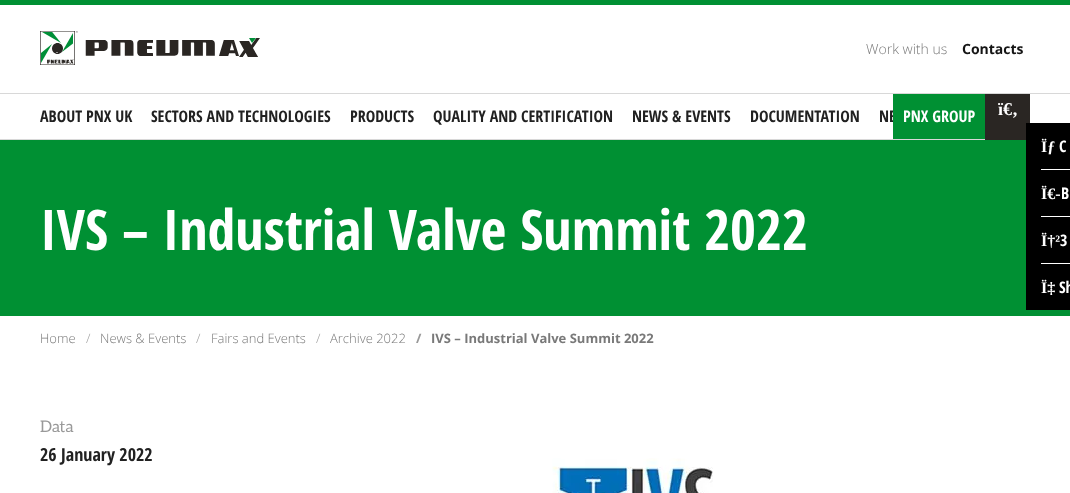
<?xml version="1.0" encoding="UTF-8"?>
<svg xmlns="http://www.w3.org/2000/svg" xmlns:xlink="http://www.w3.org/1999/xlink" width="1070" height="493">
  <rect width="100%" height="100%" fill="#ffffff" />
  <rect width="1070" height="5" fill="#009033" />
  <image x="40" y="31" width="220" height="34" xlink:href="image1.png" />
  <rect y="93" width="1070" height="1" fill="#d8d8d8" />
  <rect y="139" width="985" height="1" fill="#d8d8d8" />
  <rect x="985" y="94" width="45" height="46" fill="#2a2623" />
  <rect y="140" width="1070" height="176" fill="#009033" />
  <image x="552" y="458" width="161" height="35" xlink:href="image2.png" />
  <rect x="1026" y="123" width="44" height="187" fill="#000000" />
  <rect x="1041" y="169" width="29" height="1" fill="#ffffff" />
  <rect x="1041" y="216" width="29" height="1" fill="#ffffff" />
  <rect x="1041" y="263" width="29" height="1" fill="#ffffff" />
  <text x="866" y="54" style="font-family: Open Sans; font-size: 14px; font-weight: 300; fill: #797979">Work with us</text>
  <text x="962" y="54" style="font-family: Open Sans; font-size: 14px; font-weight: bold; fill: #151515">Contacts</text>
  <text x="40" y="122" style="font-family: Open Sans Condensed; font-size: 16px; font-weight: bold; fill: #212121">ABOUT PNX UK</text>
  <text x="151" y="122" style="font-family: Open Sans Condensed; font-size: 16px; font-weight: bold; fill: #212121">SECTORS AND TECHNOLOGIES</text>
  <text x="350" y="122" style="font-family: Open Sans Condensed; font-size: 16px; font-weight: bold; fill: #212121">PRODUCTS</text>
  <text x="433" y="122" style="font-family: Open Sans Condensed; font-size: 16px; font-weight: bold; fill: #212121">QUALITY AND CERTIFICATION</text>
  <text x="632" y="122" style="font-family: Open Sans Condensed; font-size: 16px; font-weight: bold; fill: #212121">NEWS &amp; EVENTS</text>
  <text x="750" y="122" style="font-family: Open Sans Condensed; font-size: 16px; font-weight: bold; fill: #212121">DOCUMENTATION</text>
  <text x="879" y="122" style="font-family: Open Sans Condensed; font-size: 16px; font-weight: bold; fill: #212121">NE</text>
  <rect x="893" y="94" width="92" height="45" fill="#009033" />
  <text x="903" y="122" style="font-family: Open Sans Condensed; font-size: 16px; font-weight: bold; fill: #ffffff">PNX GROUP</text>
  <text x="998" y="115" style="font-family: Liberation Serif; font-size: 18px; font-weight: bold; fill: #ffffff">ï€‚</text>
  <text x="40" y="250" style="font-family: Open Sans Condensed; font-size: 56px; font-weight: bold; fill: #ffffff">IVS – Industrial Valve Summit 2022</text>
  <text x="40" y="343" style="font-family: Open Sans; font-size: 13px; font-weight: 300; fill: #797979">Home</text>
  <text x="86" y="343" style="font-family: Open Sans; font-size: 13px; font-weight: 300; fill: #999999">/</text>
  <text x="100" y="343" style="font-family: Open Sans; font-size: 13px; font-weight: 300; fill: #797979">News &amp; Events</text>
  <text x="196" y="343" style="font-family: Open Sans; font-size: 13px; font-weight: 300; fill: #999999">/</text>
  <text x="211" y="343" style="font-family: Open Sans; font-size: 13px; font-weight: 300; fill: #797979">Fairs and Events</text>
  <text x="316" y="343" style="font-family: Open Sans; font-size: 13px; font-weight: 300; fill: #999999">/</text>
  <text x="330" y="343" style="font-family: Open Sans; font-size: 13px; font-weight: 300; fill: #797979">Archive 2022</text>
  <text x="416" y="343" style="font-family: Open Sans; font-size: 13px; font-weight: bold; fill: #999999">/</text>
  <text x="431" y="343" style="font-family: Open Sans; font-size: 13px; font-weight: bold; fill: #797979">IVS – Industrial Valve Summit 2022</text>
  <text x="40" y="432" style="font-family: Aleo; font-size: 16px; fill: #999999">Data</text>
  <text x="40" y="461" style="font-family: Open Sans Condensed; font-size: 18px; font-weight: bold; fill: #212121">26 January 2022</text>
  <text x="1041" y="152" style="font-family: Liberation Serif; font-size: 16px; font-weight: bold; fill: #ffffff">Ïƒ</text>
  <text x="1059" y="152" style="font-family: Open Sans Condensed; font-size: 16px; font-weight: bold; fill: #ffffff">C</text>
  <text x="1041" y="199" style="font-family: Liberation Serif; font-size: 16px; font-weight: bold; fill: #ffffff">Ï€-</text>
  <text x="1061" y="199" style="font-family: Open Sans Condensed; font-size: 16px; font-weight: bold; fill: #ffffff">B</text>
  <text x="1041" y="246" style="font-family: Liberation Serif; font-size: 16px; font-weight: bold; fill: #ffffff">Ï†²</text>
  <text x="1060" y="246" style="font-family: Open Sans Condensed; font-size: 16px; font-weight: bold; fill: #ffffff">3</text>
  <text x="1041" y="293" style="font-family: Liberation Serif; font-size: 16px; font-weight: bold; fill: #ffffff">Ï‡</text>
  <text x="1059" y="293" style="font-family: Open Sans Condensed; font-size: 16px; font-weight: bold; fill: #ffffff">Sh</text>
</svg>
